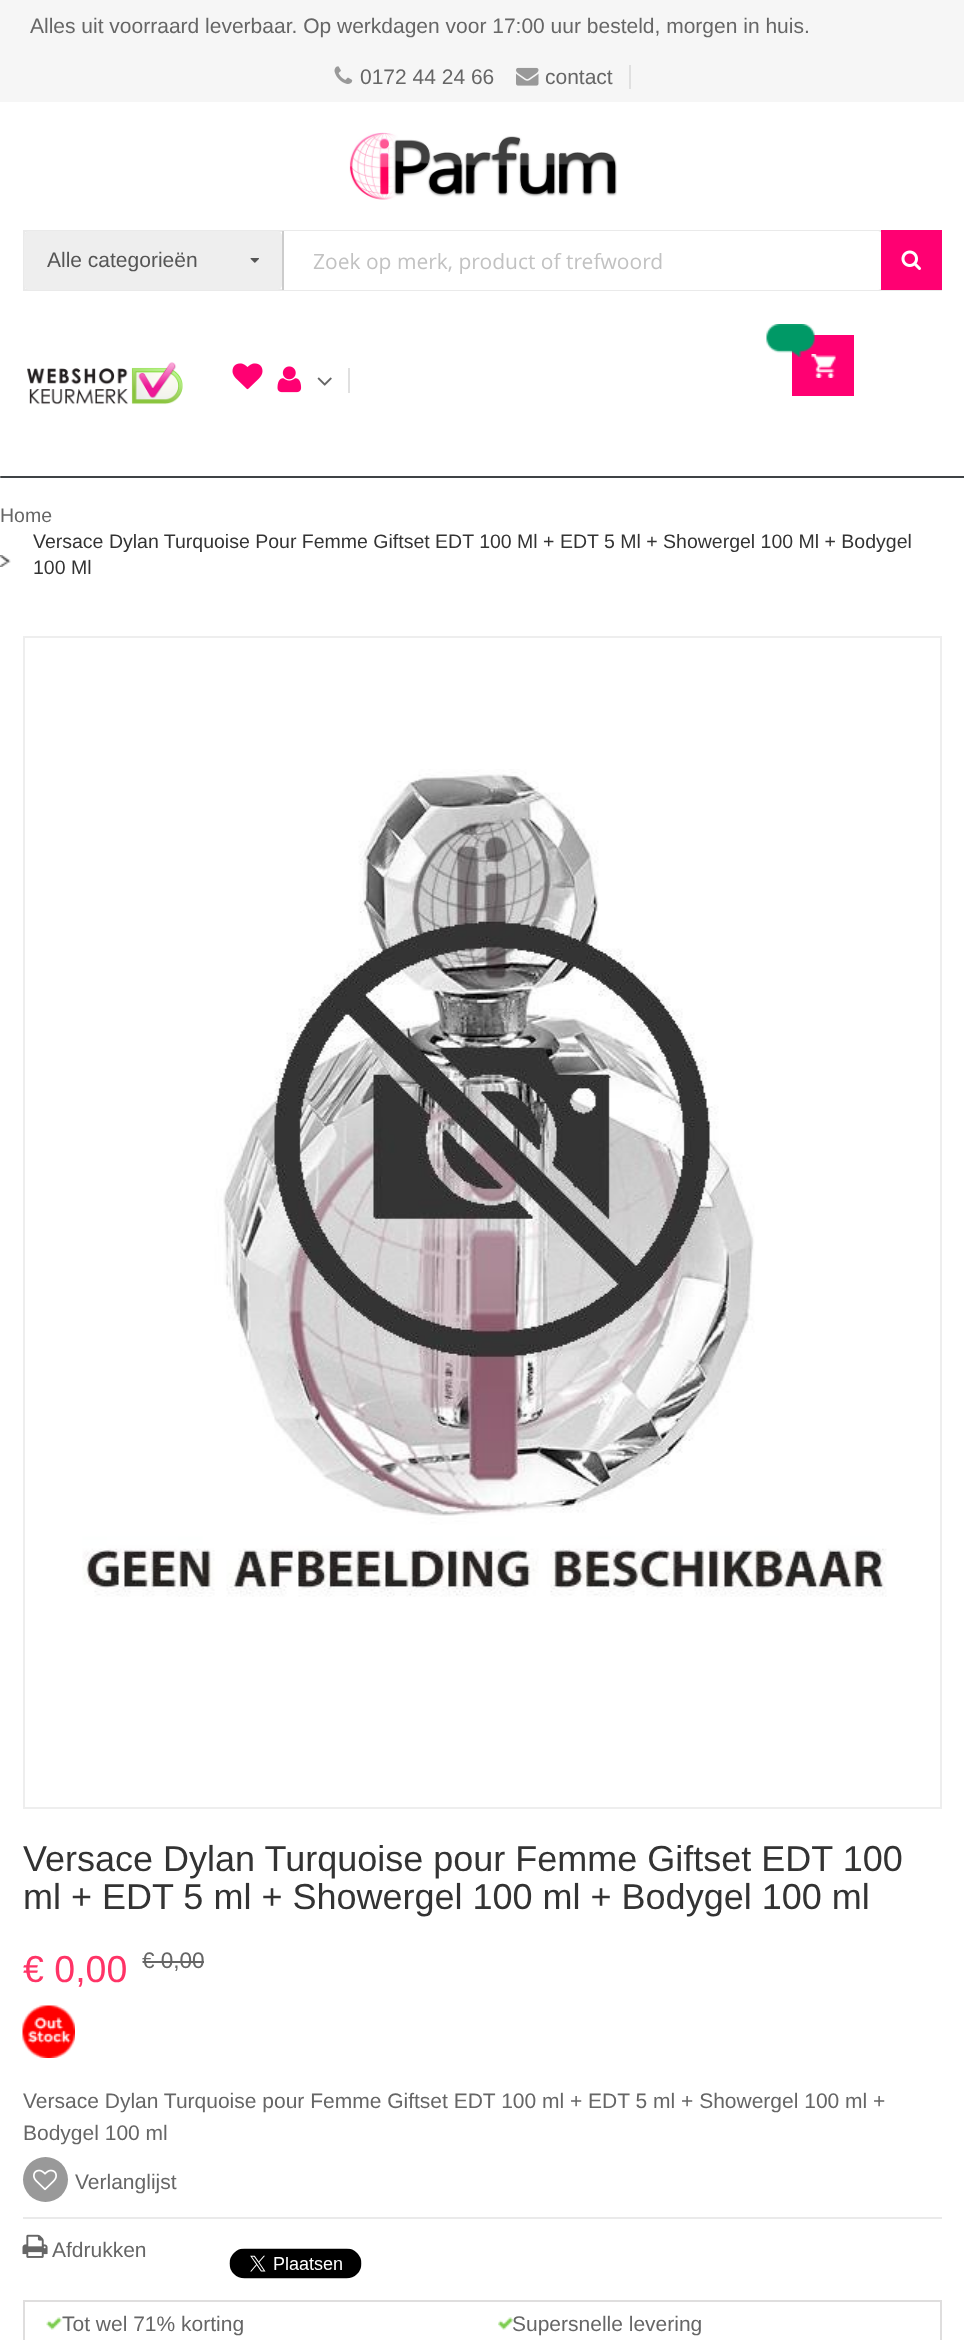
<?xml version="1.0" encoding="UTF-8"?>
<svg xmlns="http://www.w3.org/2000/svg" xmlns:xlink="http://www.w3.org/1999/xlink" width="964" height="2340">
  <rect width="100%" height="100%" fill="#ffffff" />
  <rect width="964" height="102" fill="#f6f6f6" />
  <image x="334" y="66" width="19" height="18" xlink:href="image1.png" />
  <rect x="629" y="65" width="2" height="24" fill="#e0e0e0" />
  <image x="516" y="67" width="23" height="19" xlink:href="image2.png" />
  <image x="349" y="132" width="268" height="68" xlink:href="image3.png" />
  <rect x="24" y="231" width="917" height="59" fill="none" stroke="#eaeaea" stroke-width="2" />
  <rect x="24" y="231" width="258" height="59" rx="5" fill="#eeeeee" />
  <image x="250" y="258" width="9" height="5" xlink:href="image4.png" />
  <path d="M 284 231 h 593 c 3 0 5 2 5 5 v 49 c 0 3 -2 5 -5 5 h -593 z" fill="#ffffff" />
  <rect x="282" y="231" width="2" height="59" fill="#cccccc" />
  <rect x="881" y="230" width="61" height="60" fill="#ff0072" />
  <image x="901" y="250" width="20" height="20" xlink:href="image5.png" />
  <image x="27" y="362" width="156" height="43" xlink:href="image6.png" />
  <image x="232" y="363" width="31" height="27" xlink:href="image7.png" />
  <image x="277" y="366" width="25" height="27" xlink:href="image8.png" />
  <image x="317" y="377" width="15" height="9" xlink:href="image9.png" />
  <rect x="348" y="368" width="2" height="25" fill="#e0e0e0" />
  <rect x="792" y="335" width="62" height="61" fill="#ff0072" />
  <image x="811" y="354" width="25" height="24" xlink:href="image11.png" />
  <image x="766" y="324" width="49" height="33" xlink:href="image10.png" />
  <rect y="476" width="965" height="2" rx="1" fill="#3f4346" />
  <image x="0" y="555" width="11" height="12" xlink:href="image12.png" />
  <rect x="24" y="637" width="917" height="1171" fill="none" stroke="#eeeeee" stroke-width="2" />
  <image x="82" y="769" width="805" height="828" xlink:href="image13.png" />
  <rect x="143" y="1961" width="61" height="2" fill="#666666" />
  <image x="22" y="2005" width="53" height="53" xlink:href="image14.png" />
  <circle cx="45.5" cy="2179.5" r="22.5" fill="#999999" />
  <image x="33" y="2169" width="24" height="22" xlink:href="image15.png" />
  <rect x="23" y="2217" width="919" height="2" fill="#eaeaea" />
  <image x="22" y="2234" width="26" height="24" xlink:href="image16.png" />
  <image x="229" y="2248" width="133" height="31" xlink:href="image17.png" />
  <rect x="24" y="2301" width="917" height="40" fill="none" stroke="#dfdede" stroke-width="2" />
  <image x="46" y="2317" width="16" height="13" xlink:href="image18.png" />
  <image x="498" y="2317" width="15" height="13" xlink:href="image19.png" />
  <text x="30" y="33" style="font-family: Liberation Sans; font-size: 21px; fill: #666666">Alles uit voorraard leverbaar. Op werkdagen voor 17:00 uur besteld, morgen in huis.</text>
  <text x="360" y="84" style="font-family: Liberation Sans; font-size: 21px; fill: #666666">0172 44 24 66</text>
  <text x="545" y="84" style="font-family: Liberation Sans; font-size: 21px; fill: #666666">contact</text>
  <text x="47" y="267" style="font-family: Liberation Sans; font-size: 21px; fill: #555555">Alle categorieën</text>
  <text x="313" y="269" style="font-family: Open Sans; font-size: 21px; fill: #c2c2c2">Zoek op merk, product of trefwoord</text>
  <text x="0" y="522" style="font-family: Liberation Sans; font-size: 19.5px; fill: #666666">Home</text>
  <text x="33" y="548" style="font-family: Liberation Sans; font-size: 19.5px; fill: #333333">Versace Dylan Turquoise Pour Femme Giftset EDT 100 Ml + EDT 5 Ml + Showergel 100 Ml + Bodygel</text>
  <text x="33" y="574" style="font-family: Liberation Sans; font-size: 19.5px; fill: #333333">100 Ml</text>
  <text x="23" y="1871" style="font-family: Liberation Sans; font-size: 36px; fill: #333333">Versace Dylan Turquoise pour Femme Giftset EDT 100</text>
  <text x="23" y="1909" style="font-family: Liberation Sans; font-size: 36px; fill: #333333">ml + EDT 5 ml + Showergel 100 ml + Bodygel 100 ml</text>
  <text x="23" y="1982" style="font-family: Liberation Sans; font-size: 37.5px; fill: #ff3366">€ 0,00</text>
  <text x="142" y="1968" style="font-family: Liberation Sans; font-size: 22.5px; fill: #666666">€ 0,00</text>
  <text x="23" y="2108" style="font-family: Liberation Sans; font-size: 21px; fill: #666666">Versace Dylan Turquoise pour Femme Giftset EDT 100 ml + EDT 5 ml + Showergel 100 ml +</text>
  <text x="23" y="2140" style="font-family: Liberation Sans; font-size: 21px; fill: #666666">Bodygel 100 ml</text>
  <text x="75" y="2189" style="font-family: Liberation Sans; font-size: 21px; fill: #666666">Verlanglijst</text>
  <text x="52" y="2257" style="font-family: Liberation Sans; font-size: 21px; fill: #666666">Afdrukken</text>
  <text x="62" y="2331" style="font-family: Liberation Sans; font-size: 21px; fill: #666666">Tot wel 71% korting</text>
  <text x="512" y="2331" style="font-family: Liberation Sans; font-size: 21px; fill: #666666">Supersnelle levering</text>
</svg>
